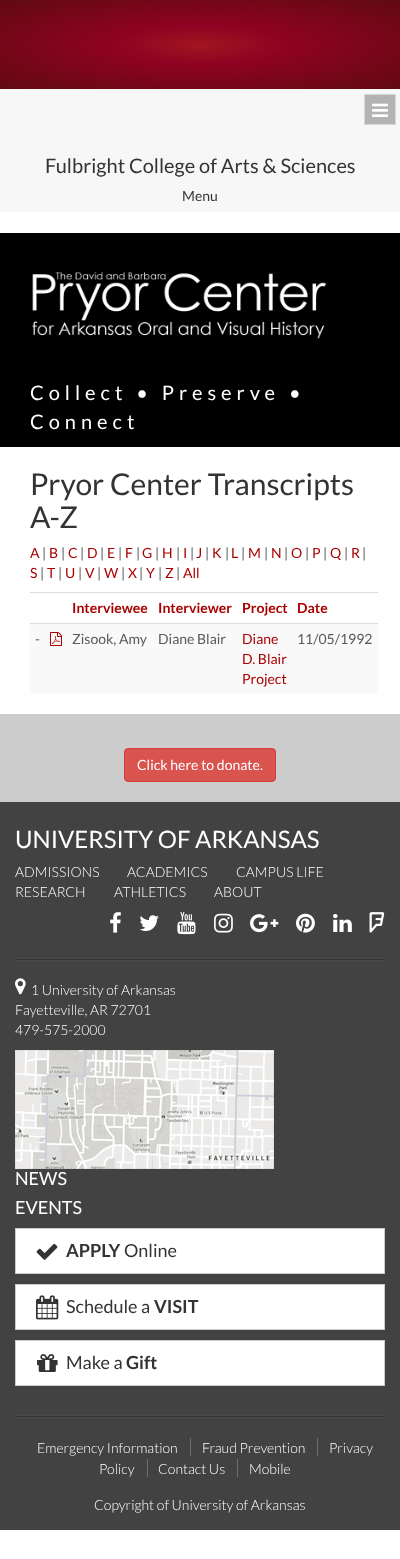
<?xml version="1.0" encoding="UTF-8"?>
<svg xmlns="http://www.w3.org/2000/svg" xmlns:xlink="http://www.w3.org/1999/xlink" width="400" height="1559">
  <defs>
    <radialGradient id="g1" gradientUnits="userSpaceOnUse" cx="0" cy="0" r="1" gradientTransform="matrix(283 0 0 63 200 45)"><stop offset="0" stop-color="#a2151f" /><stop offset="0.3" stop-color="#8f0222" /><stop offset="1" stop-color="#600a11" /></radialGradient>
  </defs>
  <rect width="100%" height="100%" fill="#ffffff" />
  <rect y="89" width="400" height="123" fill="#f7f7f7" />
  <rect width="400" height="89" fill="url(#g1)" />
  <rect x="364.5" y="94.5" width="31" height="30" fill="#b3b3b3" stroke="#d8d8d8" />
  <image x="372" y="103" width="16" height="14" xlink:href="image1.png" />
  <rect y="233" width="400" height="214" fill="#000000" />
  <image x="32" y="271" width="295" height="68" xlink:href="image2.png" />
  <rect x="30" y="592" width="348" height="1" fill="#dddddd" />
  <rect x="30" y="624" width="348" height="70" fill="#f9f9f9" />
  <image x="50" y="632" width="12" height="14" xlink:href="image3.png" />
  <rect x="30" y="623" width="348" height="1" fill="#dddddd" />
  <rect y="714" width="400" height="88" fill="#cccccc" />
  <rect x="124.5" y="748.5" width="151" height="33" rx="3.5" fill="#d9534f" stroke="#d43f3a" />
  <rect y="802" width="400" height="728" fill="#424242" />
  <image x="110" y="912" width="11" height="21" xlink:href="image4.png" />
  <image x="139" y="915" width="20" height="16" xlink:href="image5.png" />
  <image x="177" y="912" width="19" height="23" xlink:href="image6.png" />
  <image x="214" y="913" width="19" height="20" xlink:href="image7.png" />
  <image x="250" y="914" width="29" height="19" xlink:href="image8.png" />
  <image x="296" y="913" width="19" height="20" xlink:href="image9.png" />
  <image x="333" y="914" width="19" height="18" xlink:href="image10.png" />
  <image x="369" y="912" width="16" height="21" xlink:href="image11.png" />
  <rect x="15" y="959" width="370" height="1" fill="#dcdcdc" fill-opacity="0.2" filter="blur(1px)" />
  <rect x="15" y="959" width="370" height="1" fill="#333333" />
  <image x="15" y="978" width="11" height="17" xlink:href="image12.png" />
  <image x="15" y="1050" width="259" height="119" xlink:href="image13.png" />
  <rect x="15.5" y="1228.5" width="369" height="45" fill="#ffffff" stroke="#cccccc" />
  <image x="36" y="1243" width="22" height="17" xlink:href="image14.png" />
  <rect x="15.5" y="1284.5" width="369" height="45" fill="#ffffff" stroke="#cccccc" />
  <image x="36" y="1295" width="23" height="25" xlink:href="image15.png" />
  <rect x="15.5" y="1340.5" width="369" height="45" fill="#ffffff" stroke="#cccccc" />
  <image x="37" y="1354" width="21" height="18" xlink:href="image16.png" />
  <rect x="15" y="1416" width="370" height="1" fill="#dcdcdc" fill-opacity="0.2" filter="blur(1px)" />
  <rect x="15" y="1416" width="370" height="1" fill="#333333" />
  <rect x="190" y="1438" width="1" height="18" fill="#6e6e6e" />
  <rect x="317" y="1438" width="1" height="18" fill="#6e6e6e" />
  <rect x="147" y="1459" width="1" height="18" fill="#6e6e6e" />
  <rect x="237" y="1459" width="1" height="18" fill="#6e6e6e" />
  <text x="45" y="173" style="font-family: Lato; font-size: 20px; fill: #333333">Fulbright College of Arts &amp; Sciences</text>
  <text x="182" y="201" style="font-family: Lato; font-size: 14px; fill: #333333">Menu</text>
  <text x="30" y="400" style="font-family: Lato; font-size: 20px; letter-spacing: 5px; fill: #ffffff">Collect • Preserve •</text>
  <text x="30" y="429" style="font-family: Lato; font-size: 20px; letter-spacing: 5px; fill: #ffffff">Connect</text>
  <text x="30" y="495" style="font-family: Lato; font-size: 30px; fill: #333333">Pryor Center Transcripts</text>
  <text x="30" y="528" style="font-family: Lato; font-size: 30px; fill: #333333">A-Z</text>
  <text x="30" y="558" style="font-family: Lato; font-size: 14px; fill: #aa0000">A</text>
  <text x="42" y="558" style="font-family: Lato; font-size: 14px; fill: #5a5a5a">|</text>
  <text x="49" y="558" style="font-family: Lato; font-size: 14px; fill: #aa0000">B</text>
  <text x="61" y="558" style="font-family: Lato; font-size: 14px; fill: #5a5a5a">|</text>
  <text x="68" y="558" style="font-family: Lato; font-size: 14px; fill: #aa0000">C</text>
  <text x="80" y="558" style="font-family: Lato; font-size: 14px; fill: #5a5a5a">|</text>
  <text x="87" y="558" style="font-family: Lato; font-size: 14px; fill: #aa0000">D</text>
  <text x="100" y="558" style="font-family: Lato; font-size: 14px; fill: #5a5a5a">|</text>
  <text x="107" y="558" style="font-family: Lato; font-size: 14px; fill: #aa0000">E</text>
  <text x="118" y="558" style="font-family: Lato; font-size: 14px; fill: #5a5a5a">|</text>
  <text x="125" y="558" style="font-family: Lato; font-size: 14px; fill: #aa0000">F</text>
  <text x="136" y="558" style="font-family: Lato; font-size: 14px; fill: #5a5a5a">|</text>
  <text x="142" y="558" style="font-family: Lato; font-size: 14px; fill: #aa0000">G</text>
  <text x="155" y="558" style="font-family: Lato; font-size: 14px; fill: #5a5a5a">|</text>
  <text x="162" y="558" style="font-family: Lato; font-size: 14px; fill: #aa0000">H</text>
  <text x="176" y="558" style="font-family: Lato; font-size: 14px; fill: #5a5a5a">|</text>
  <text x="183" y="558" style="font-family: Lato; font-size: 14px; fill: #aa0000">I</text>
  <text x="190" y="558" style="font-family: Lato; font-size: 14px; fill: #5a5a5a">|</text>
  <text x="196" y="558" style="font-family: Lato; font-size: 14px; fill: #aa0000">J</text>
  <text x="205" y="558" style="font-family: Lato; font-size: 14px; fill: #5a5a5a">|</text>
  <text x="212" y="558" style="font-family: Lato; font-size: 14px; fill: #aa0000">K</text>
  <text x="225" y="558" style="font-family: Lato; font-size: 14px; fill: #5a5a5a">|</text>
  <text x="231" y="558" style="font-family: Lato; font-size: 14px; fill: #aa0000">L</text>
  <text x="241" y="558" style="font-family: Lato; font-size: 14px; fill: #5a5a5a">|</text>
  <text x="248" y="558" style="font-family: Lato; font-size: 14px; fill: #aa0000">M</text>
  <text x="264" y="558" style="font-family: Lato; font-size: 14px; fill: #5a5a5a">|</text>
  <text x="271" y="558" style="font-family: Lato; font-size: 14px; fill: #aa0000">N</text>
  <text x="284" y="558" style="font-family: Lato; font-size: 14px; fill: #5a5a5a">|</text>
  <text x="291" y="558" style="font-family: Lato; font-size: 14px; fill: #aa0000">O</text>
  <text x="305" y="558" style="font-family: Lato; font-size: 14px; fill: #5a5a5a">|</text>
  <text x="312" y="558" style="font-family: Lato; font-size: 14px; fill: #aa0000">P</text>
  <text x="323" y="558" style="font-family: Lato; font-size: 14px; fill: #5a5a5a">|</text>
  <text x="330" y="558" style="font-family: Lato; font-size: 14px; fill: #aa0000">Q</text>
  <text x="344" y="558" style="font-family: Lato; font-size: 14px; fill: #5a5a5a">|</text>
  <text x="351" y="558" style="font-family: Lato; font-size: 14px; fill: #aa0000">R</text>
  <text x="362" y="558" style="font-family: Lato; font-size: 14px; fill: #5a5a5a">|</text>
  <text x="30" y="578" style="font-family: Lato; font-size: 14px; fill: #aa0000">S</text>
  <text x="40" y="578" style="font-family: Lato; font-size: 14px; fill: #5a5a5a">|</text>
  <text x="47" y="578" style="font-family: Lato; font-size: 14px; fill: #aa0000">T</text>
  <text x="58" y="578" style="font-family: Lato; font-size: 14px; fill: #5a5a5a">|</text>
  <text x="65" y="578" style="font-family: Lato; font-size: 14px; fill: #aa0000">U</text>
  <text x="78" y="578" style="font-family: Lato; font-size: 14px; fill: #5a5a5a">|</text>
  <text x="85" y="578" style="font-family: Lato; font-size: 14px; fill: #aa0000">V</text>
  <text x="97" y="578" style="font-family: Lato; font-size: 14px; fill: #5a5a5a">|</text>
  <text x="104" y="578" style="font-family: Lato; font-size: 14px; fill: #aa0000">W</text>
  <text x="121" y="578" style="font-family: Lato; font-size: 14px; fill: #5a5a5a">|</text>
  <text x="128" y="578" style="font-family: Lato; font-size: 14px; fill: #aa0000">X</text>
  <text x="139" y="578" style="font-family: Lato; font-size: 14px; fill: #5a5a5a">|</text>
  <text x="146" y="578" style="font-family: Lato; font-size: 14px; fill: #aa0000">Y</text>
  <text x="158" y="578" style="font-family: Lato; font-size: 14px; fill: #5a5a5a">|</text>
  <text x="165" y="578" style="font-family: Lato; font-size: 14px; fill: #aa0000">Z</text>
  <text x="176" y="578" style="font-family: Lato; font-size: 14px; fill: #5a5a5a">|</text>
  <text x="183" y="578" style="font-family: Lato; font-size: 14px; fill: #aa0000">All</text>
  <text x="72" y="613" style="font-family: Lato; font-size: 14px; font-weight: bold; fill: #aa0000">Interviewee</text>
  <text x="158" y="613" style="font-family: Lato; font-size: 14px; font-weight: bold; fill: #aa0000">Interviewer</text>
  <text x="242" y="613" style="font-family: Lato; font-size: 14px; font-weight: bold; fill: #aa0000">Project</text>
  <text x="297" y="613" style="font-family: Lato; font-size: 14px; font-weight: bold; fill: #aa0000">Date</text>
  <text x="35" y="644" style="font-family: Lato; font-size: 14px; fill: #5a5a5a">-</text>
  <text x="72" y="644" style="font-family: Lato; font-size: 14px; fill: #5a5a5a">Zisook, Amy</text>
  <text x="158" y="644" style="font-family: Lato; font-size: 14px; fill: #5a5a5a">Diane Blair</text>
  <text x="242" y="644" style="font-family: Lato; font-size: 14px; fill: #aa0000">Diane</text>
  <text x="242" y="664" style="font-family: Lato; font-size: 14px; fill: #aa0000">D. Blair</text>
  <text x="242" y="684" style="font-family: Lato; font-size: 14px; fill: #aa0000">Project</text>
  <text x="297" y="644" style="font-family: Lato; font-size: 14px; fill: #5a5a5a">11/05/1992</text>
  <text x="137" y="770" style="font-family: Lato; font-size: 14px; fill: #ffffff">Click here to donate.</text>
  <text x="15" y="848" style="font-family: Lato; font-size: 24px; fill: #ffffff">UNIVERSITY OF ARKANSAS</text>
  <text x="15" y="877" style="font-family: Lato; font-size: 14px; font-weight: 300; fill: #ffffff">ADMISSIONS</text>
  <text x="127" y="877" style="font-family: Lato; font-size: 14px; font-weight: 300; fill: #ffffff">ACADEMICS</text>
  <text x="236" y="877" style="font-family: Lato; font-size: 14px; font-weight: 300; fill: #ffffff">CAMPUS LIFE</text>
  <text x="15" y="897" style="font-family: Lato; font-size: 14px; font-weight: 300; fill: #ffffff">RESEARCH</text>
  <text x="114" y="897" style="font-family: Lato; font-size: 14px; font-weight: 300; fill: #ffffff">ATHLETICS</text>
  <text x="214" y="897" style="font-family: Lato; font-size: 14px; font-weight: 300; fill: #ffffff">ABOUT</text>
  <text x="31" y="995" style="font-family: Lato; font-size: 14px; font-weight: 300; fill: #ffffff">1 University of Arkansas</text>
  <text x="15" y="1015" style="font-family: Lato; font-size: 14px; font-weight: 300; fill: #ffffff">Fayetteville, AR 72701</text>
  <text x="15" y="1035" style="font-family: Lato; font-size: 14px; font-weight: 300; fill: #ffffff">479-575-2000</text>
  <text x="15" y="1185" style="font-family: Lato; font-size: 18px; fill: #ffffff">NEWS</text>
  <text x="15" y="1214" style="font-family: Lato; font-size: 18px; fill: #ffffff">EVENTS</text>
  <text x="66" y="1257" style="font-family: Lato; font-size: 18px; font-weight: bold; fill: #333333">APPLY</text>
  <text x="124" y="1257" style="font-family: Lato; font-size: 18px; fill: #333333">Online</text>
  <text x="66" y="1313" style="font-family: Lato; font-size: 18px; fill: #333333">Schedule a</text>
  <text x="154" y="1313" style="font-family: Lato; font-size: 18px; font-weight: bold; fill: #333333">VISIT</text>
  <text x="66" y="1369" style="font-family: Lato; font-size: 18px; fill: #333333">Make a</text>
  <text x="126" y="1369" style="font-family: Lato; font-size: 18px; font-weight: bold; fill: #333333">Gift</text>
  <text x="37" y="1453" style="font-family: Lato; font-size: 14px; font-weight: 300; fill: #ffffff">Emergency Information</text>
  <text x="202" y="1453" style="font-family: Lato; font-size: 14px; font-weight: 300; fill: #ffffff">Fraud Prevention</text>
  <text x="329" y="1453" style="font-family: Lato; font-size: 14px; font-weight: 300; fill: #ffffff">Privacy</text>
  <text x="99" y="1474" style="font-family: Lato; font-size: 14px; font-weight: 300; fill: #ffffff">Policy</text>
  <text x="158" y="1474" style="font-family: Lato; font-size: 14px; font-weight: 300; fill: #ffffff">Contact Us</text>
  <text x="249" y="1474" style="font-family: Lato; font-size: 14px; font-weight: 300; fill: #ffffff">Mobile</text>
  <text x="94" y="1510" style="font-family: Lato; font-size: 14px; font-weight: 300; fill: #ffffff">Copyright of University of Arkansas</text>
</svg>
